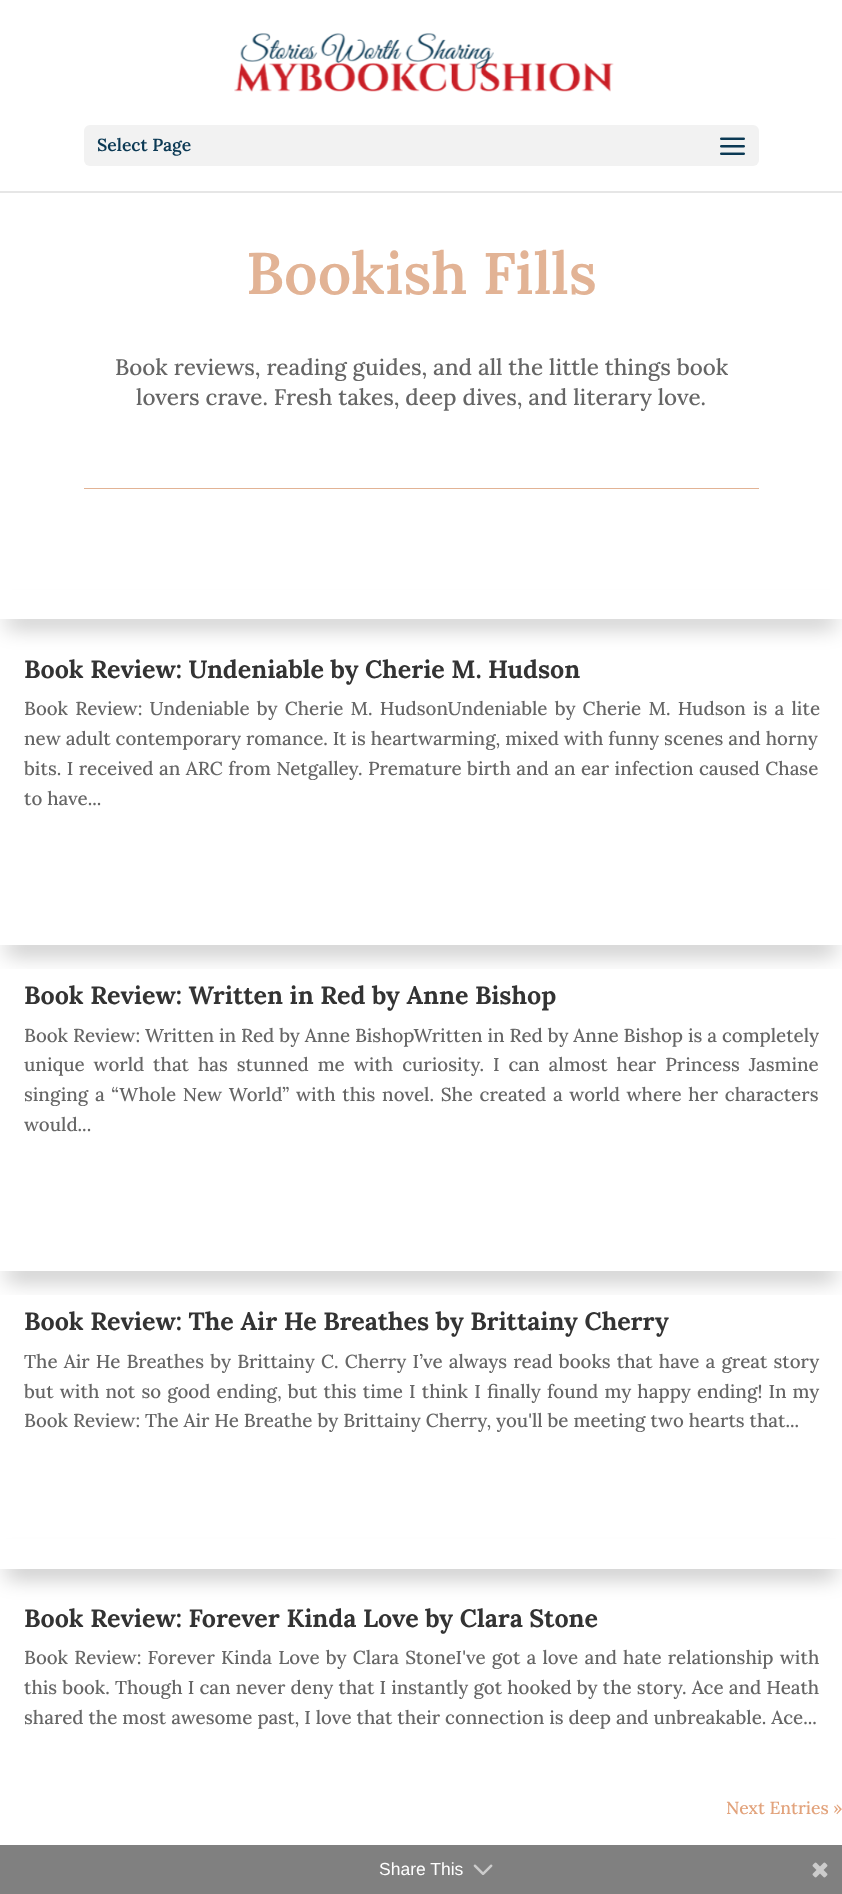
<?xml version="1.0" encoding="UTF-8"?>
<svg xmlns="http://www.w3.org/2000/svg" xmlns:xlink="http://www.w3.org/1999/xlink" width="842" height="1894">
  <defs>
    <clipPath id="clip1"><path d="M 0 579 h 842 v 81 h -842 z m -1 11 h 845 v 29 h -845 z" clip-rule="evenodd" /></clipPath>
    <clipPath id="clip2"><rect x="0" y="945" width="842" height="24" /></clipPath>
    <clipPath id="clip3"><rect x="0" y="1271" width="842" height="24" /></clipPath>
    <clipPath id="clip4"><path d="M 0 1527 h 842 v 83 h -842 z m -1 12 h 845 v 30 h -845 z" clip-rule="evenodd" /></clipPath>
  </defs>
  <rect width="100%" height="100%" fill="#ffffff" />
  <path d="M 0 191 v 2 h 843 v -192 h -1 v 190 z" fill="#e6e6e6" />
  <image x="234" y="33" width="380" height="59" xlink:href="image1.png" />
  <rect x="84" y="125" width="675" height="41" rx="6" fill="#f2f2f2" />
  <image x="720" y="137" width="25" height="18" xlink:href="image2.png" />
  <rect x="84" y="488" width="675" height="1" fill="#e2b395" />
  <g clip-path="url(#clip1)">
    <rect x="6" y="613" width="830" height="13" fill="#000000" fill-opacity="0.3" filter="blur(11px)" />
  </g>
  <g clip-path="url(#clip2)">
    <rect x="6" y="939" width="830" height="14" fill="#000000" fill-opacity="0.3" filter="blur(11px)" />
  </g>
  <g clip-path="url(#clip3)">
    <rect x="6" y="1265" width="830" height="14" fill="#000000" fill-opacity="0.3" filter="blur(11px)" />
  </g>
  <g clip-path="url(#clip4)">
    <rect x="6" y="1561" width="830" height="15" fill="#000000" fill-opacity="0.3" filter="blur(11px)" />
  </g>
  <rect y="1845" width="842" height="49" fill="#808080" />
  <image x="473" y="1864" width="20" height="11" xlink:href="image3.png" />
  <image x="812" y="1862" width="16" height="16" xlink:href="image4.png" />
  <text x="97" y="151" style="font-family: Lora; font-size: 17.5px; font-weight: 600; fill: #0b3954">Select Page</text>
  <text x="246" y="294" style="font-family: Lora; font-size: 58.75px; font-weight: 600; fill: #e2b395">Bookish Fills</text>
  <text x="115" y="375" style="font-family: Lora; font-size: 22.5px; font-weight: 500; fill: #666666">Book reviews, reading guides, and all the little things book</text>
  <text x="136" y="405" style="font-family: Lora; font-size: 22.5px; font-weight: 500; fill: #666666">lovers crave. Fresh takes, deep dives, and literary love.</text>
  <text x="24" y="678" style="font-family: Lora; font-size: 25px; font-weight: bold; fill: #333333">Book Review: Undeniable by Cherie M. Hudson</text>
  <text x="24" y="715" word-spacing="2.25" style="font-family: Lora; font-size: 18.75px; font-weight: 500; fill: #666666">Book Review: Undeniable by Cherie M. HudsonUndeniable by Cherie M. Hudson is a lite</text>
  <text x="24" y="745" style="font-family: Lora; font-size: 18.75px; font-weight: 500; fill: #666666">new adult contemporary romance. It is heartwarming, mixed with funny scenes and horny</text>
  <text x="24" y="775" word-spacing="0.5" style="font-family: Lora; font-size: 18.75px; font-weight: 500; fill: #666666">bits. I received an ARC from Netgalley. Premature birth and an ear infection caused Chase</text>
  <text x="24" y="805" style="font-family: Lora; font-size: 18.75px; font-weight: 500; fill: #666666">to have...</text>
  <text x="24" y="1004" style="font-family: Lora; font-size: 25px; font-weight: bold; fill: #333333">Book Review: Written in Red by Anne Bishop</text>
  <text x="24" y="1042" style="font-family: Lora; font-size: 18.75px; font-weight: 500; fill: #666666">Book Review: Written in Red by Anne BishopWritten in Red by Anne Bishop is a completely</text>
  <text x="24" y="1071" word-spacing="4" style="font-family: Lora; font-size: 18.75px; font-weight: 500; fill: #666666">unique world that has stunned me with curiosity. I can almost hear Princess Jasmine</text>
  <text x="24" y="1101" word-spacing="1.75" style="font-family: Lora; font-size: 18.75px; font-weight: 500; fill: #666666">singing a “Whole New World” with this novel. She created a world where her characters</text>
  <text x="24" y="1131" style="font-family: Lora; font-size: 18.75px; font-weight: 500; fill: #666666">would...</text>
  <text x="24" y="1330" style="font-family: Lora; font-size: 25px; font-weight: bold; fill: #333333">Book Review: The Air He Breathes by Brittainy Cherry</text>
  <text x="24" y="1368" word-spacing="1.25" style="font-family: Lora; font-size: 18.75px; font-weight: 500; fill: #666666">The Air He Breathes by Brittainy C. Cherry I’ve always read books that have a great story</text>
  <text x="24" y="1398" word-spacing="1.2" style="font-family: Lora; font-size: 18.75px; font-weight: 500; fill: #666666">but with not so good ending, but this time I think I finally found my happy ending! In my</text>
  <text x="24" y="1427" style="font-family: Lora; font-size: 18.75px; font-weight: 500; fill: #666666">Book Review: The Air He Breathe by Brittainy Cherry, you'll be meeting two hearts that...</text>
  <text x="24" y="1627" style="font-family: Lora; font-size: 25px; font-weight: bold; fill: #333333">Book Review: Forever Kinda Love by Clara Stone</text>
  <text x="24" y="1664" word-spacing="1.25" style="font-family: Lora; font-size: 18.75px; font-weight: 500; fill: #666666">Book Review: Forever Kinda Love by Clara StoneI've got a love and hate relationship with</text>
  <text x="24" y="1694" word-spacing="0.2" style="font-family: Lora; font-size: 18.75px; font-weight: 500; fill: #666666">this book. Though I can never deny that I instantly got hooked by the story. Ace and Heath</text>
  <text x="24" y="1724" style="font-family: Lora; font-size: 18.75px; font-weight: 500; fill: #666666">shared the most awesome past, I love that their connection is deep and unbreakable. Ace...</text>
  <text x="726" y="1814" style="font-family: Lora; font-size: 17.5px; font-weight: 500; fill: #e2a37c">Next Entries »</text>
  <text x="379" y="1875" style="font-family: Liberation Sans; font-size: 17.5px; fill: #ffffff">Share This</text>
</svg>
